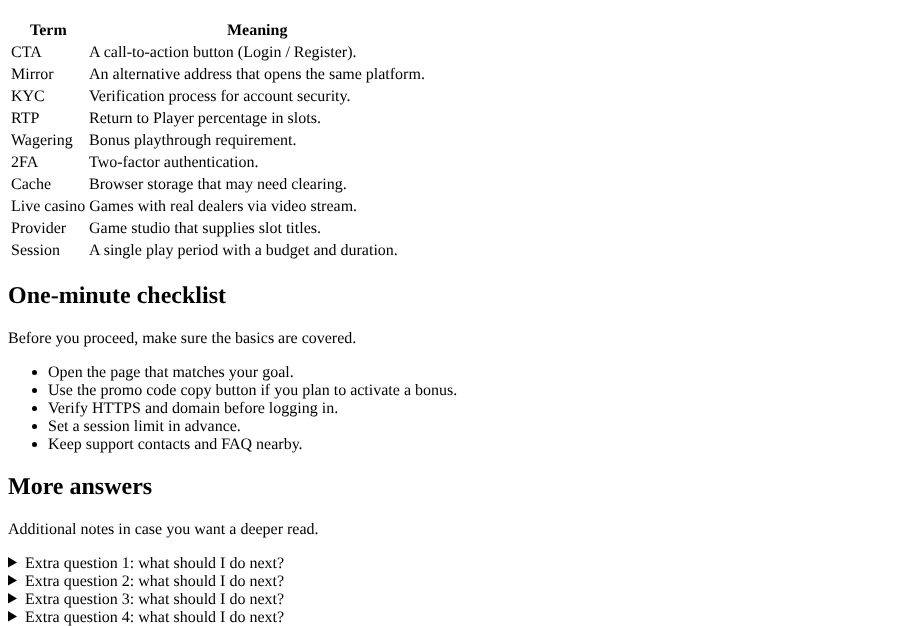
<?xml version="1.0" encoding="UTF-8"?>
<svg xmlns="http://www.w3.org/2000/svg" xmlns:xlink="http://www.w3.org/1999/xlink" width="921" height="626">
  <rect width="100%" height="100%" fill="#ffffff" />
  <circle cx="34.5" cy="372.5" r="2.5" fill="#000000" />
  <circle cx="34.5" cy="390.5" r="2.5" fill="#000000" />
  <circle cx="34.5" cy="408.5" r="2.5" fill="#000000" />
  <circle cx="34.5" cy="426.5" r="2.5" fill="#000000" />
  <circle cx="34.5" cy="444.5" r="2.5" fill="#000000" />
  <path d="M 8 557 l 9 5.5 l -9 5 z" fill="#000000" />
  <path d="M 8 575 l 9 5.5 l -9 5 z" fill="#000000" />
  <path d="M 8 593 l 9 5.5 l -9 5 z" fill="#000000" />
  <path d="M 8 611 l 9 5.5 l -9 5 z" fill="#000000" />
  <text x="30" y="35" style="font-family: Liberation Serif; font-size: 16px; font-weight: bold; fill: #000000">Term</text>
  <text x="227" y="35" style="font-family: Liberation Serif; font-size: 16px; font-weight: bold; fill: #000000">Meaning</text>
  <text x="11" y="57" style="font-family: Liberation Serif; font-size: 16px; fill: #000000">CTA</text>
  <text x="89" y="57" style="font-family: Liberation Serif; font-size: 16px; fill: #000000">A call-to-action button (Login / Register).</text>
  <text x="11" y="79" style="font-family: Liberation Serif; font-size: 16px; fill: #000000">Mirror</text>
  <text x="89" y="79" style="font-family: Liberation Serif; font-size: 16px; fill: #000000">An alternative address that opens the same platform.</text>
  <text x="11" y="101" style="font-family: Liberation Serif; font-size: 16px; fill: #000000">KYC</text>
  <text x="89" y="101" style="font-family: Liberation Serif; font-size: 16px; fill: #000000">Verification process for account security.</text>
  <text x="11" y="123" style="font-family: Liberation Serif; font-size: 16px; fill: #000000">RTP</text>
  <text x="89" y="123" style="font-family: Liberation Serif; font-size: 16px; fill: #000000">Return to Player percentage in slots.</text>
  <text x="11" y="145" style="font-family: Liberation Serif; font-size: 16px; fill: #000000">Wagering</text>
  <text x="89" y="145" style="font-family: Liberation Serif; font-size: 16px; fill: #000000">Bonus playthrough requirement.</text>
  <text x="11" y="167" style="font-family: Liberation Serif; font-size: 16px; fill: #000000">2FA</text>
  <text x="89" y="167" style="font-family: Liberation Serif; font-size: 16px; fill: #000000">Two-factor authentication.</text>
  <text x="11" y="189" style="font-family: Liberation Serif; font-size: 16px; fill: #000000">Cache</text>
  <text x="89" y="189" style="font-family: Liberation Serif; font-size: 16px; fill: #000000">Browser storage that may need clearing.</text>
  <text x="11" y="211" style="font-family: Liberation Serif; font-size: 16px; fill: #000000">Live casino Games with real dealers via video stream.</text>
  <text x="11" y="233" style="font-family: Liberation Serif; font-size: 16px; fill: #000000">Provider</text>
  <text x="89" y="233" style="font-family: Liberation Serif; font-size: 16px; fill: #000000">Game studio that supplies slot titles.</text>
  <text x="11" y="255" style="font-family: Liberation Serif; font-size: 16px; fill: #000000">Session</text>
  <text x="89" y="255" style="font-family: Liberation Serif; font-size: 16px; fill: #000000">A single play period with a budget and duration.</text>
  <text x="8" y="303" style="font-family: Liberation Serif; font-size: 24px; font-weight: bold; fill: #000000">One-minute checklist</text>
  <text x="8" y="343" style="font-family: Liberation Serif; font-size: 16px; fill: #000000">Before you proceed, make sure the basics are covered.</text>
  <text x="48" y="377" style="font-family: Liberation Serif; font-size: 16px; fill: #000000">Open the page that matches your goal.</text>
  <text x="48" y="395" style="font-family: Liberation Serif; font-size: 16px; fill: #000000">Use the promo code copy button if you plan to activate a bonus.</text>
  <text x="48" y="413" style="font-family: Liberation Serif; font-size: 16px; fill: #000000">Verify HTTPS and domain before logging in.</text>
  <text x="48" y="431" style="font-family: Liberation Serif; font-size: 16px; fill: #000000">Set a session limit in advance.</text>
  <text x="48" y="449" style="font-family: Liberation Serif; font-size: 16px; fill: #000000">Keep support contacts and FAQ nearby.</text>
  <text x="8" y="494" style="font-family: Liberation Serif; font-size: 24px; font-weight: bold; fill: #000000">More answers</text>
  <text x="8" y="534" style="font-family: Liberation Serif; font-size: 16px; fill: #000000">Additional notes in case you want a deeper read.</text>
  <text x="25" y="568" style="font-family: Liberation Serif; font-size: 16px; fill: #000000">Extra question 1: what should I do next?</text>
  <text x="25" y="586" style="font-family: Liberation Serif; font-size: 16px; fill: #000000">Extra question 2: what should I do next?</text>
  <text x="25" y="604" style="font-family: Liberation Serif; font-size: 16px; fill: #000000">Extra question 3: what should I do next?</text>
  <text x="25" y="622" style="font-family: Liberation Serif; font-size: 16px; fill: #000000">Extra question 4: what should I do next?</text>
</svg>
